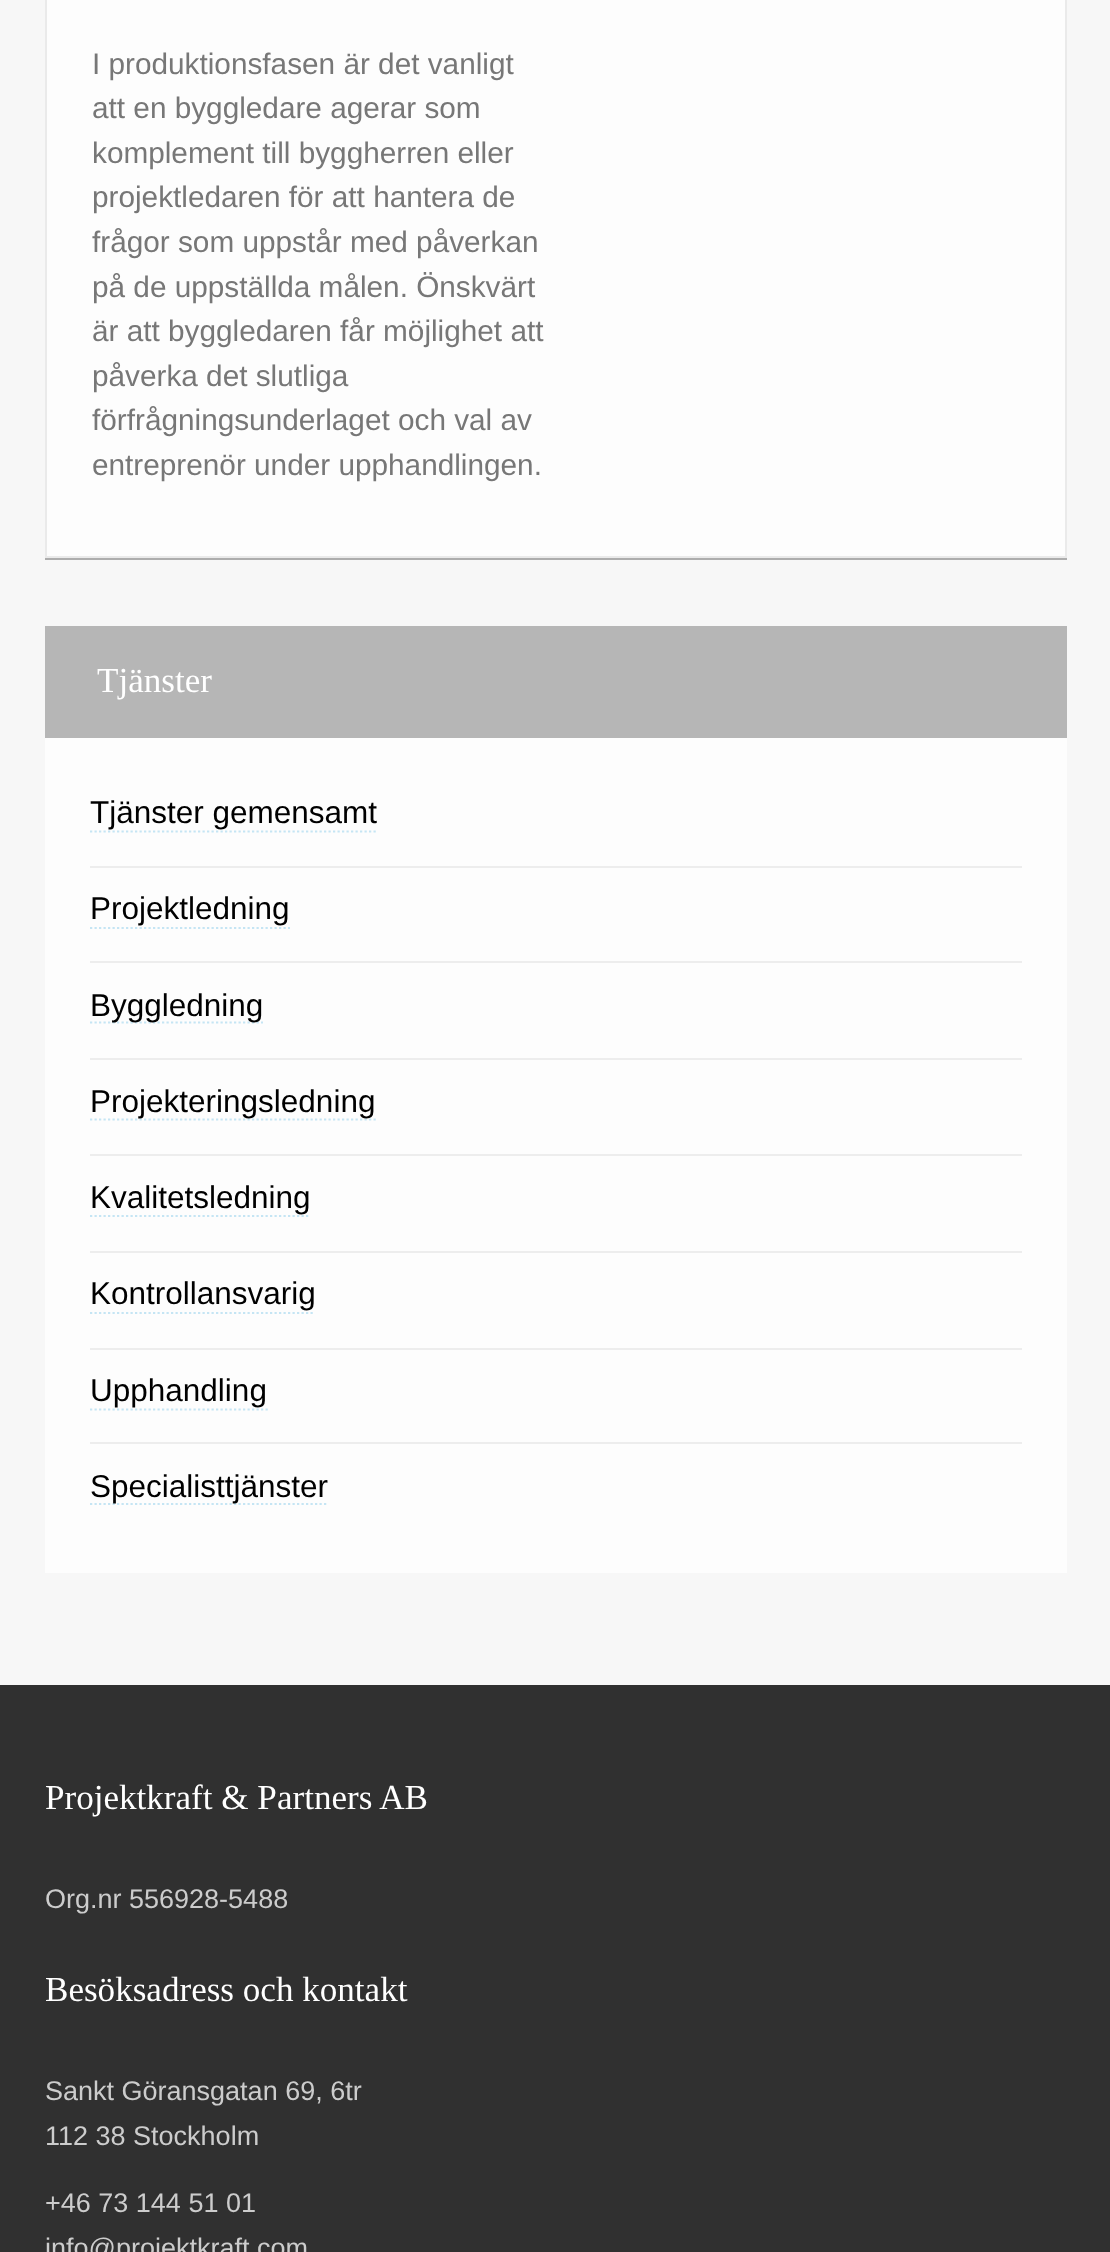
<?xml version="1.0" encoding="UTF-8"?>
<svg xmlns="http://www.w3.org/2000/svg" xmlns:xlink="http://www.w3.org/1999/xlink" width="1110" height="2252">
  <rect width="100%" height="100%" fill="#f7f7f7" />
  <path d="M 45 558 v 2 h 1022 v -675 h -1 v 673 z" fill="#adadad" />
  <rect x="46" y="-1" width="1020" height="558" fill="#fdfdfd" stroke="#eaeaea" stroke-width="2" />
  <rect x="45" y="738" width="1022" height="835" fill="#fdfdfd" />
  <rect x="45" y="626" width="1022" height="112" fill="#b6b6b6" />
  <rect x="90" y="866" width="932" height="2" fill="#ededed" />
  <path d="M 90 831.5 h 288" fill="none" stroke="#c5e5f4" stroke-width="2.2" stroke-dasharray="2.25 2.25" />
  <rect x="90" y="961" width="932" height="2" fill="#ededed" />
  <path d="M 90 928 h 200" fill="none" stroke="#c5e5f4" stroke-width="2.2" stroke-dasharray="2.25 2.25" />
  <rect x="90" y="1058" width="932" height="2" fill="#ededed" />
  <path d="M 90 1022.5 h 173" fill="none" stroke="#c5e5f4" stroke-width="2.2" stroke-dasharray="2.25 2.25" />
  <rect x="90" y="1154" width="932" height="2" fill="#ededed" />
  <path d="M 90 1119.5 h 286" fill="none" stroke="#c5e5f4" stroke-width="2.2" stroke-dasharray="2.25 2.25" />
  <rect x="90" y="1251" width="932" height="2" fill="#ededed" />
  <path d="M 90 1216 h 220.5" fill="none" stroke="#c5e5f4" stroke-width="2.2" stroke-dasharray="2.25 2.25" />
  <rect x="90" y="1348" width="932" height="2" fill="#ededed" />
  <path d="M 90 1313 h 225" fill="none" stroke="#c5e5f4" stroke-width="2.2" stroke-dasharray="2.25 2.25" />
  <rect x="90" y="1442" width="932" height="2" fill="#ededed" />
  <path d="M 90 1409.5 h 178" fill="none" stroke="#c5e5f4" stroke-width="2.2" stroke-dasharray="2.25 2.25" />
  <path d="M 90 1504 h 238.5" fill="none" stroke="#c5e5f4" stroke-width="2.2" stroke-dasharray="2.25 2.25" />
  <rect y="1685" width="1110" height="567" fill="#303030" />
  <text x="92" y="74" style="font-family: Liberation Sans; font-size: 29.75px; fill: #777777">I produktionsfasen är det vanligt</text>
  <text x="92" y="118" style="font-family: Liberation Sans; font-size: 29.75px; fill: #777777">att en byggledare agerar som</text>
  <text x="92" y="163" style="font-family: Liberation Sans; font-size: 29.75px; fill: #777777">komplement till byggherren eller</text>
  <text x="92" y="207" style="font-family: Liberation Sans; font-size: 29.75px; fill: #777777">projektledaren för att hantera de</text>
  <text x="92" y="252" style="font-family: Liberation Sans; font-size: 29.75px; fill: #777777">frågor som uppstår med påverkan</text>
  <text x="92" y="297" style="font-family: Liberation Sans; font-size: 29.75px; fill: #777777">på de uppställda målen. Önskvärt</text>
  <text x="92" y="341" style="font-family: Liberation Sans; font-size: 29.75px; fill: #777777">är att byggledaren får möjlighet att</text>
  <text x="92" y="386" style="font-family: Liberation Sans; font-size: 29.75px; fill: #777777">påverka det slutliga</text>
  <text x="92" y="430" style="font-family: Liberation Sans; font-size: 29.75px; fill: #777777">förfrågningsunderlaget och val av</text>
  <text x="92" y="475" style="font-family: Liberation Sans; font-size: 29.75px; fill: #777777">entreprenör under upphandlingen.</text>
  <text x="97" y="692" style="font-family: Liberation Serif; font-size: 35.1px; fill: #ffffff">Tjänster</text>
  <text x="90" y="823" style="font-family: Liberation Sans; font-size: 31.5px; fill: #000000">Tjänster gemensamt</text>
  <text x="90" y="919" style="font-family: Liberation Sans; font-size: 31.5px; fill: #000000">Projektledning</text>
  <text x="90" y="1016" style="font-family: Liberation Sans; font-size: 31.5px; fill: #000000">Byggledning</text>
  <text x="90" y="1112" style="font-family: Liberation Sans; font-size: 31.5px; fill: #000000">Projekteringsledning</text>
  <text x="90" y="1208" style="font-family: Liberation Sans; font-size: 31.5px; fill: #000000">Kvalitetsledning</text>
  <text x="90" y="1304" style="font-family: Liberation Sans; font-size: 31.5px; fill: #000000">Kontrollansvarig</text>
  <text x="90" y="1401" style="font-family: Liberation Sans; font-size: 31.5px; fill: #000000">Upphandling</text>
  <text x="90" y="1497" style="font-family: Liberation Sans; font-size: 31.5px; fill: #000000">Specialisttjänster</text>
  <text x="45" y="1809" style="font-family: Liberation Serif; font-size: 35.1px; fill: #ffffff">Projektkraft &amp; Partners AB</text>
  <text x="45" y="1908" style="font-family: Liberation Sans; font-size: 27px; fill: #cccccc">Org.nr 556928-5488</text>
  <text x="45" y="2001" style="font-family: Liberation Serif; font-size: 35.1px; fill: #ffffff">Besöksadress och kontakt</text>
  <text x="45" y="2100" style="font-family: Liberation Sans; font-size: 27px; fill: #cccccc">Sankt Göransgatan 69, 6tr</text>
  <text x="45" y="2145" style="font-family: Liberation Sans; font-size: 27px; fill: #cccccc">112 38 Stockholm</text>
  <text x="45" y="2212" style="font-family: Liberation Sans; font-size: 27px; fill: #cccccc">+46 73 144 51 01</text>
  <text x="45" y="2257" style="font-family: Liberation Sans; font-size: 27px; fill: #cccccc">info@projektkraft.com</text>
</svg>
